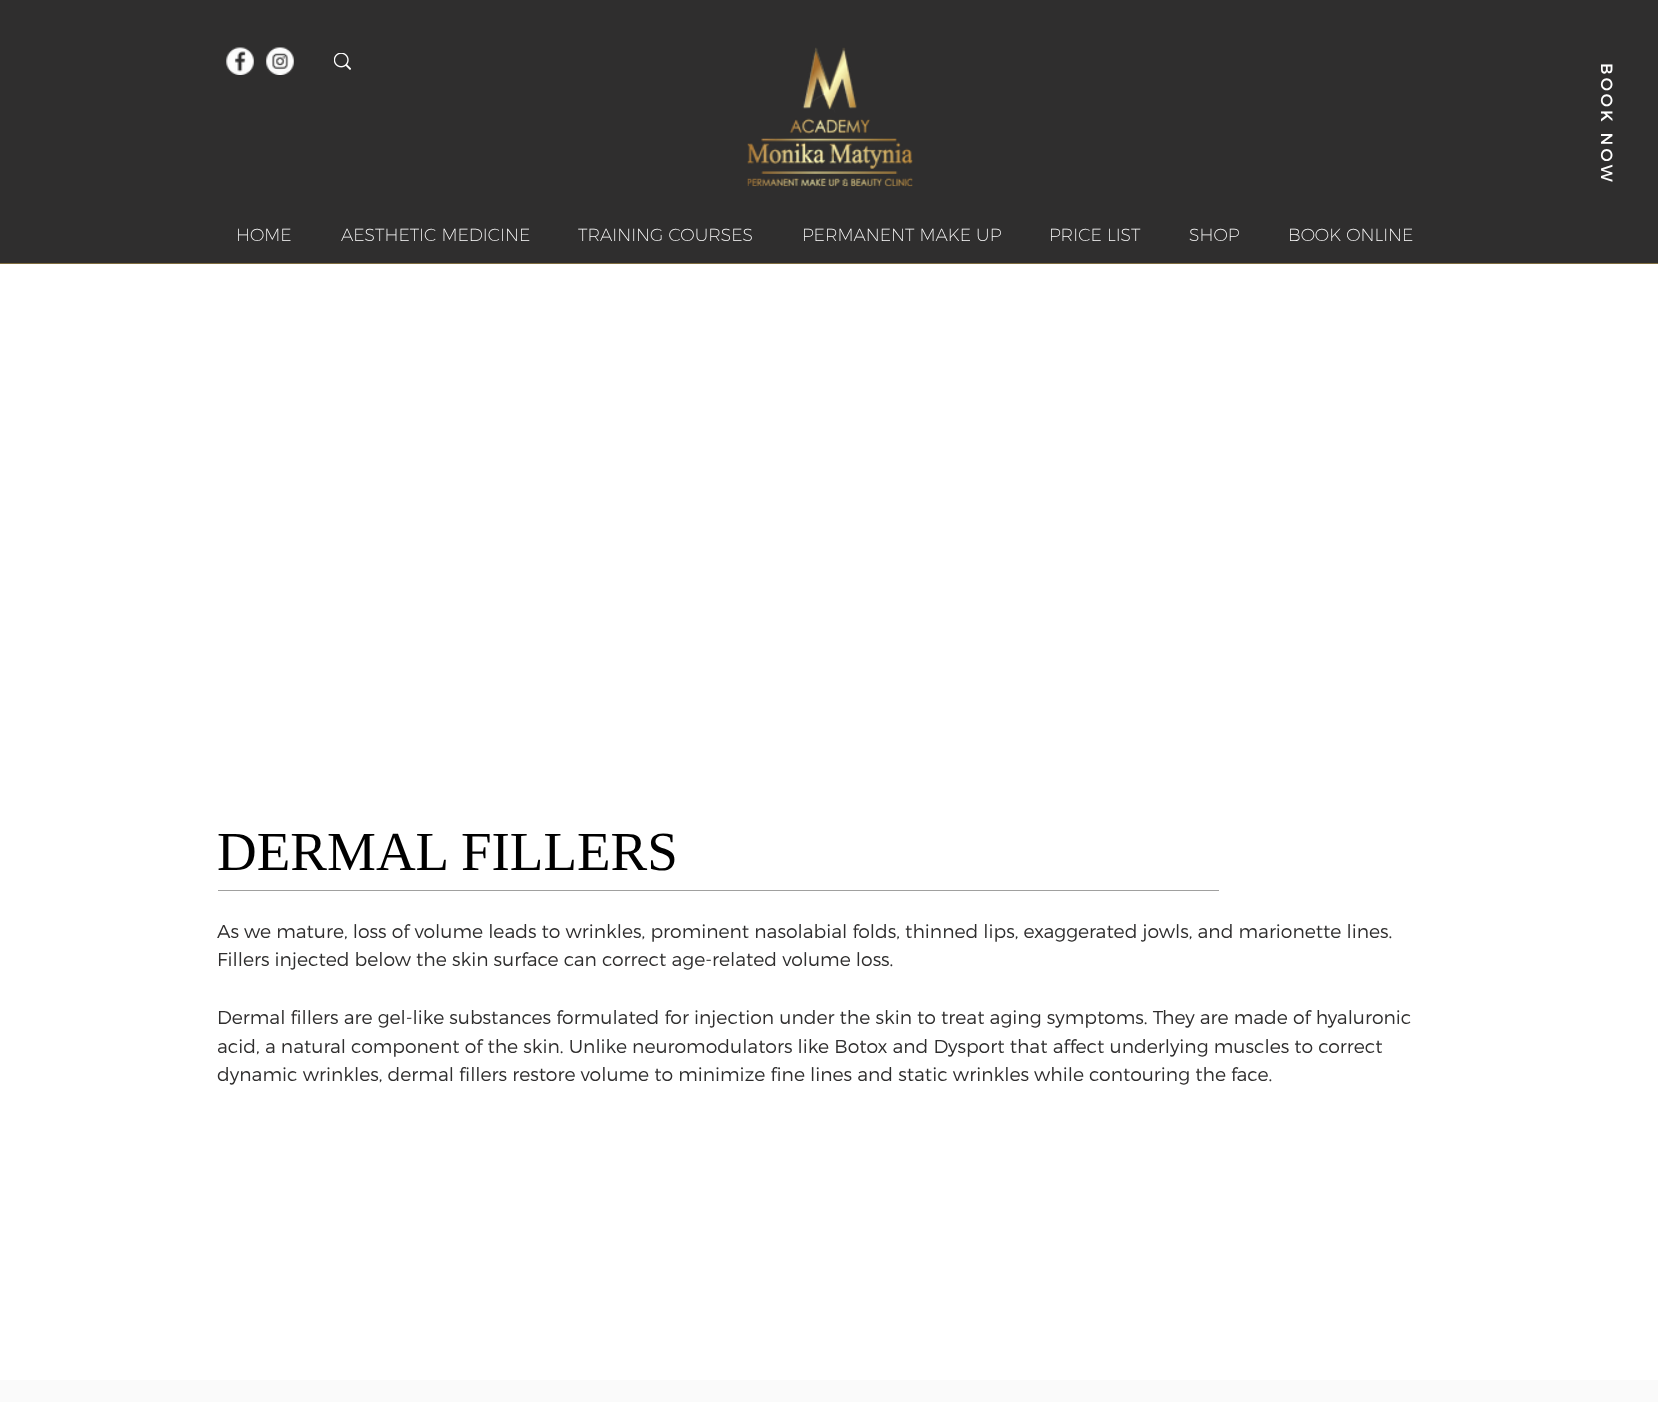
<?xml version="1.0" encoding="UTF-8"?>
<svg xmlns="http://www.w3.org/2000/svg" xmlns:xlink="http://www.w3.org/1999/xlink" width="1658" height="1402">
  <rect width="100%" height="100%" fill="#ffffff" />
  <rect width="1658" height="263" fill="#2f2e2e" />
  <rect y="263" width="1658" height="1" fill="#7e6c3f" />
  <image x="226" y="47" width="28" height="28" xlink:href="image1.png" />
  <image x="266" y="47" width="28" height="28" xlink:href="image2.png" />
  <image x="334" y="53" width="17" height="17" xlink:href="image3.png" />
  <image x="747" y="47" width="166" height="140" xlink:href="image4.png" />
  <rect x="218" y="890" width="1001" height="1" fill="#a0a09f" />
  <rect y="1380" width="1658" height="22" fill="#fafafa" />
  <text x="1601" y="63" transform="rotate(90 1601 63)" style="font-family: Montserrat; font-size: 16.25px; letter-spacing: 3.25px; fill: #ffffff">BOOK NOW</text>
  <text x="236" y="241" style="font-family: Montserrat; font-size: 17.5px; font-weight: 200; fill: #ffffff">HOME</text>
  <text x="341" y="241" style="font-family: Montserrat; font-size: 17.5px; font-weight: 200; fill: #ffffff">AESTHETIC MEDICINE</text>
  <text x="578" y="241" style="font-family: Montserrat; font-size: 17.5px; font-weight: 200; fill: #ffffff">TRAINING COURSES</text>
  <text x="802" y="241" style="font-family: Montserrat; font-size: 17.5px; font-weight: 200; fill: #ffffff">PERMANENT MAKE UP</text>
  <text x="1049" y="241" style="font-family: Montserrat; font-size: 17.5px; font-weight: 200; fill: #ffffff">PRICE LIST</text>
  <text x="1189" y="241" style="font-family: Montserrat; font-size: 17.5px; font-weight: 200; fill: #ffffff">SHOP</text>
  <text x="1288" y="241" style="font-family: Montserrat; font-size: 17.5px; font-weight: 200; fill: #ffffff">BOOK ONLINE</text>
  <text x="217" y="870" style="font-family: Liberation Serif; font-size: 55px; fill: #000000">DERMAL FILLERS</text>
  <text x="217" y="938" style="font-family: Montserrat; font-size: 18.75px; font-weight: 300; fill: #2f2e2e">As we mature, loss of volume leads to wrinkles, prominent nasolabial folds, thinned lips, exaggerated jowls, and marionette lines.</text>
  <text x="217" y="966" style="font-family: Montserrat; font-size: 18.75px; font-weight: 300; fill: #2f2e2e">Fillers injected below the skin surface can correct age-related volume loss.</text>
  <text x="217" y="1024" style="font-family: Montserrat; font-size: 18.75px; font-weight: 300; fill: #2f2e2e">Dermal fillers are gel-like substances formulated for injection under the skin to treat aging symptoms. They are made of hyaluronic</text>
  <text x="217" y="1053" style="font-family: Montserrat; font-size: 18.75px; font-weight: 300; fill: #2f2e2e">acid, a natural component of the skin. Unlike neuromodulators like Botox and Dysport that affect underlying muscles to correct</text>
  <text x="217" y="1081" style="font-family: Montserrat; font-size: 18.75px; font-weight: 300; fill: #2f2e2e">dynamic wrinkles, dermal fillers restore volume to minimize fine lines and static wrinkles while contouring the face.</text>
</svg>
